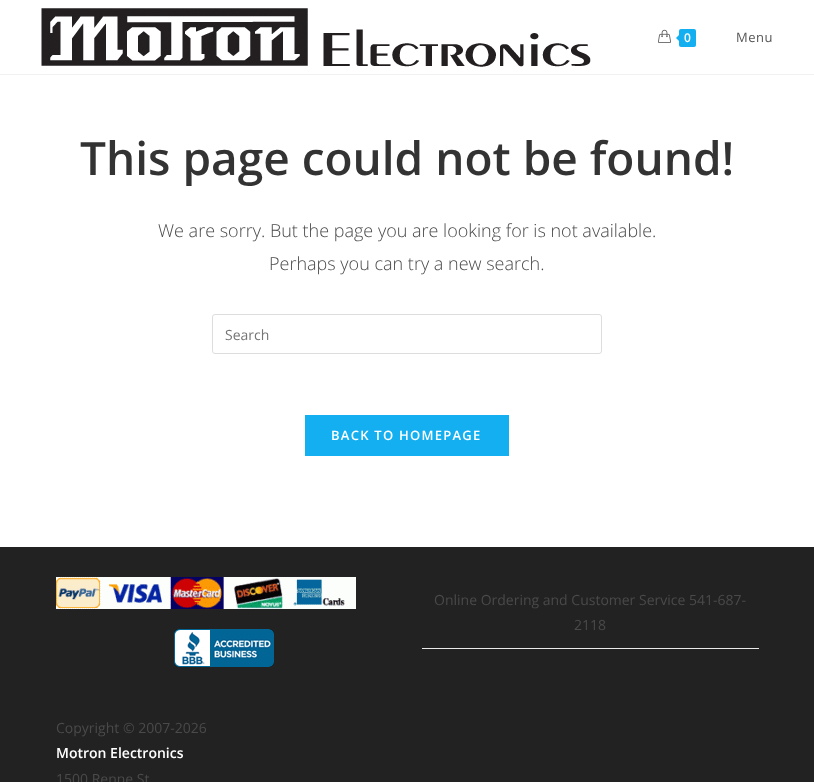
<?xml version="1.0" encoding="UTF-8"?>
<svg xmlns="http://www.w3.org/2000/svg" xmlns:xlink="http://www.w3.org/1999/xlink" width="814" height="782">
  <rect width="100%" height="100%" fill="#ffffff" />
  <rect y="74" width="814" height="1" fill="#f1f1f1" />
  <image x="41" y="8" width="550" height="59" xlink:href="image1.png" />
  <image x="658" y="29" width="13" height="14" xlink:href="image2.png" />
  <rect x="679" y="29" width="17" height="18" rx="2" fill="#13aff0" />
  <path d="M 681 33 v 10 l -5 -5 z" fill="#13aff0" />
  <rect x="212.5" y="314.5" width="389" height="39" rx="2.5" fill="none" stroke="#dddddd" />
  <rect x="305" y="415" width="204" height="41" fill="#13aff0" />
  <rect y="547" width="814" height="235" fill="#222222" />
  <image x="56" y="577" width="300" height="32" xlink:href="image3.png" />
  <image x="174" y="629" width="100" height="38" xlink:href="image4.png" />
  <rect x="422" y="648" width="337" height="1" fill="#e9e9e9" />
  <text x="684" y="42" style="font-family: Open Sans; font-size: 12px; font-weight: 600; letter-spacing: 0.5px; fill: #ffffff">0</text>
  <text x="736" y="42" style="font-family: Open Sans; font-size: 13px; letter-spacing: 0.5px; fill: #555555">Menu</text>
  <text x="80" y="175" style="font-family: Open Sans; font-size: 46px; font-weight: 600; fill: #333333">This page could not be found!</text>
  <text x="158" y="237" style="font-family: Open Sans; font-size: 18px; font-weight: 300; fill: #4a4a4a">We are sorry. But the page you are looking for is not available.</text>
  <text x="269" y="270" style="font-family: Open Sans; font-size: 18px; font-weight: 300; fill: #4a4a4a">Perhaps you can try a new search.</text>
  <text x="225" y="340" style="font-family: Open Sans; font-size: 14px; fill: #757575">Search</text>
  <text x="331" y="440" style="font-family: Open Sans; font-size: 13px; font-weight: 600; letter-spacing: 1.25px; fill: #ffffff">BACK TO HOMEPAGE</text>
  <text x="434" y="605" style="font-family: Open Sans; font-size: 14px; fill: #4a4a4a">Online Ordering and Customer Service 541-687-</text>
  <text x="574" y="630" style="font-family: Open Sans; font-size: 14px; fill: #4a4a4a">2118</text>
  <text x="56" y="733" style="font-family: Open Sans; font-size: 14px; fill: #4a4a4a">Copyright © 2007-2026</text>
  <text x="56" y="758" style="font-family: Open Sans; font-size: 14px; font-weight: 600; fill: #ffffff">Motron Electronics</text>
  <text x="56" y="784" style="font-family: Open Sans; font-size: 14px; fill: #4a4a4a">1500 Renne St</text>
</svg>
